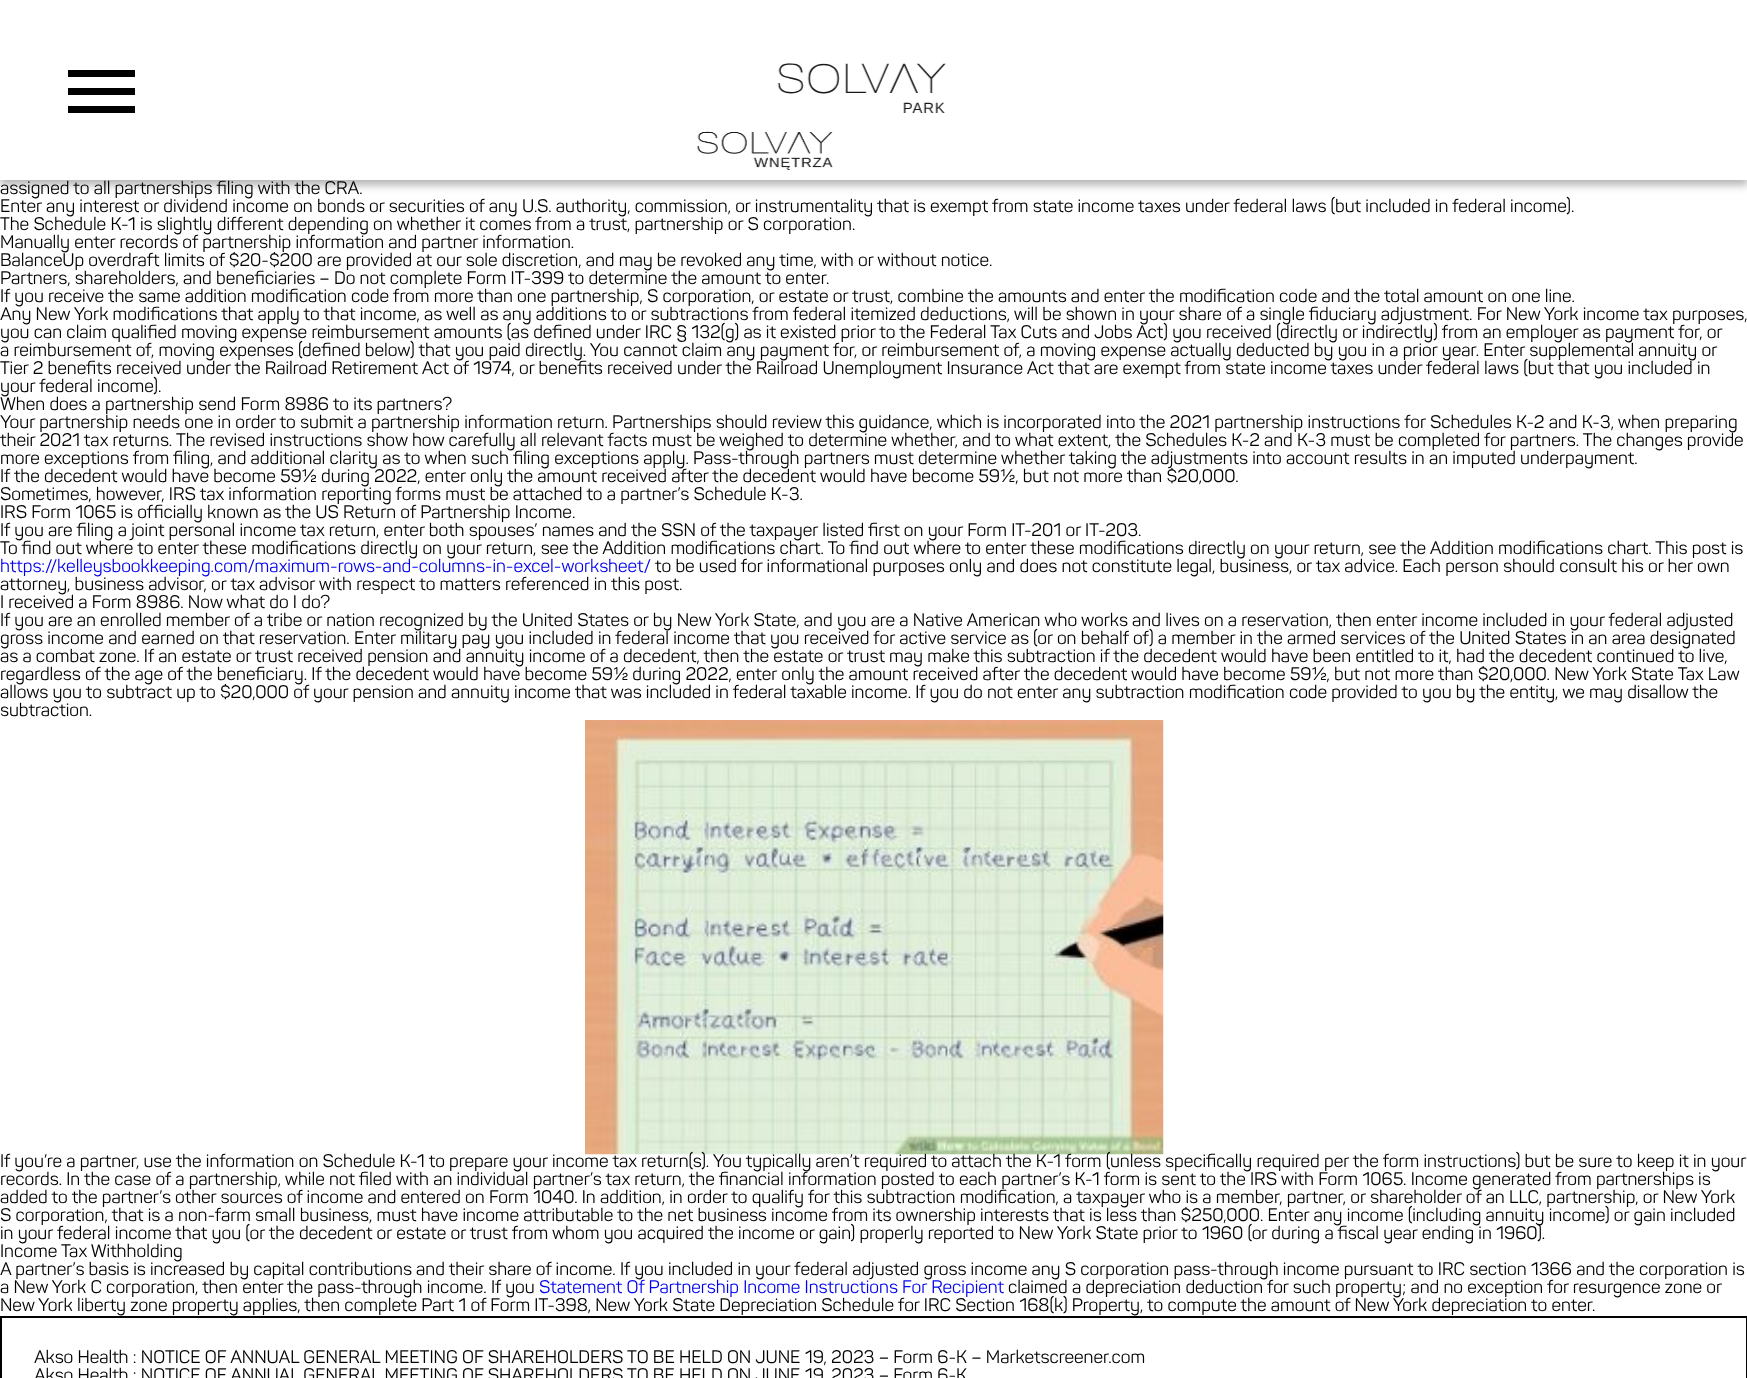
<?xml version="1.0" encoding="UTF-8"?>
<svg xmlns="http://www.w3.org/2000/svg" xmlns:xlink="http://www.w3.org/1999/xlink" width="1747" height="1378">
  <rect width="100%" height="100%" fill="#ffffff" />
  <rect y="5" width="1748" height="180" fill="#000000" fill-opacity="0.3" filter="blur(4.5px)" />
  <rect width="1747" height="180" fill="#ffffff" />
  <rect x="68" y="70" width="67" height="7" fill="#000000" />
  <rect x="68" y="88" width="67" height="7" fill="#000000" />
  <rect x="68" y="106" width="67" height="7" fill="#000000" />
  <image x="696" y="63" width="250" height="107" xlink:href="image1.png" />
  <image x="585" y="720" width="579" height="435" xlink:href="image2.png" />
  <rect x="1" y="1317" width="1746" height="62" fill="none" stroke="#000000" stroke-width="2" />
  <text x="0" y="194" style="font-family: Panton; font-size: 18px; fill: #000000">assigned to all partnerships filing with the CRA.</text>
  <text x="0" y="212" style="font-family: Panton; font-size: 18px; fill: #000000">Enter any interest or dividend income on bonds or securities of any U.S. authority, commission, or instrumentality that is exempt from state income taxes under federal laws (but included in federal income).</text>
  <text x="0" y="230" style="font-family: Panton; font-size: 18px; fill: #000000">The Schedule K-1 is slightly different depending on whether it comes from a trust, partnership or S corporation.</text>
  <text x="0" y="248" style="font-family: Panton; font-size: 18px; fill: #000000">Manually enter records of partnership information and partner information.</text>
  <text x="0" y="266" style="font-family: Panton; font-size: 18px; fill: #000000">BalanceUp overdraft limits of $20-$200 are provided at our sole discretion, and may be revoked any time, with or without notice.</text>
  <text x="0" y="284" style="font-family: Panton; font-size: 18px; fill: #000000">Partners, shareholders, and beneficiaries – Do not complete Form IT-399 to determine the amount to enter.</text>
  <text x="0" y="302" style="font-family: Panton; font-size: 18px; fill: #000000">If you receive the same addition modification code from more than one partnership, S corporation, or estate or trust, combine the amounts and enter the modification code and the total amount on one line.</text>
  <text x="0" y="320" style="font-family: Panton; font-size: 18px; fill: #000000">Any New York modifications that apply to that income, as well as any additions to or subtractions from federal itemized deductions, will be shown in your share of a single fiduciary adjustment. For New York income tax purposes,</text>
  <text x="0" y="338" style="font-family: Panton; font-size: 18px; fill: #000000">you can claim qualified moving expense reimbursement amounts (as defined under IRC § 132(g) as it existed prior to the Federal Tax Cuts and Jobs Act) you received (directly or indirectly) from an employer as payment for, or</text>
  <text x="0" y="356" style="font-family: Panton; font-size: 18px; fill: #000000">a reimbursement of, moving expenses (defined below) that you paid directly. You cannot claim any payment for, or reimbursement of, a moving expense actually deducted by you in a prior year. Enter supplemental annuity or</text>
  <text x="0" y="374" style="font-family: Panton; font-size: 18px; fill: #000000">Tier 2 benefits received under the Railroad Retirement Act of 1974, or benefits received under the Railroad Unemployment Insurance Act that are exempt from state income taxes under federal laws (but that you included in</text>
  <text x="0" y="392" style="font-family: Panton; font-size: 18px; fill: #000000">your federal income).</text>
  <text x="0" y="410" style="font-family: Panton; font-size: 18px; fill: #000000">When does a partnership send Form 8986 to its partners?</text>
  <text x="0" y="428" style="font-family: Panton; font-size: 18px; fill: #000000">Your partnership needs one in order to submit a partnership information return. Partnerships should review this guidance, which is incorporated into the 2021 partnership instructions for Schedules K-2 and K-3, when preparing</text>
  <text x="0" y="446" style="font-family: Panton; font-size: 18px; fill: #000000">their 2021 tax returns. The revised instructions show how carefully all relevant facts must be weighed to determine whether, and to what extent, the Schedules K-2 and K-3 must be completed for partners. The changes provide</text>
  <text x="0" y="464" style="font-family: Panton; font-size: 18px; fill: #000000">more exceptions from filing, and additional clarity as to when such filing exceptions apply. Pass-through partners must determine whether taking the adjustments into account results in an imputed underpayment.</text>
  <text x="0" y="482" style="font-family: Panton; font-size: 18px; fill: #000000">If the decedent would have become 59½ during 2022, enter only the amount received after the decedent would have become 59½, but not more than $20,000.</text>
  <text x="0" y="500" style="font-family: Panton; font-size: 18px; fill: #000000">Sometimes, however, IRS tax information reporting forms must be attached to a partner’s Schedule K-3.</text>
  <text x="0" y="518" style="font-family: Panton; font-size: 18px; fill: #000000">IRS Form 1065 is officially known as the US Return of Partnership Income.</text>
  <text x="0" y="536" style="font-family: Panton; font-size: 18px; fill: #000000">If you are filing a joint personal income tax return, enter both spouses’ names and the SSN of the taxpayer listed first on your Form IT-201 or IT-203.</text>
  <text x="0" y="554" style="font-family: Panton; font-size: 18px; fill: #000000">To find out where to enter these modifications directly on your return, see the Addition modifications chart. To find out where to enter these modifications directly on your return, see the Addition modifications chart. This post is</text>
  <text x="0" y="572" style="font-family: Panton; font-size: 18px; fill: #0000ee">https://kelleysbookkeeping.com/maximum-rows-and-columns-in-excel-worksheet/</text>
  <text x="655" y="572" style="font-family: Panton; font-size: 18px; fill: #000000">to be used for informational purposes only and does not constitute legal, business, or tax advice. Each person should consult his or her own</text>
  <text x="0" y="590" style="font-family: Panton; font-size: 18px; fill: #000000">attorney, business advisor, or tax advisor with respect to matters referenced in this post.</text>
  <text x="0" y="608" style="font-family: Panton; font-size: 18px; fill: #000000">I received a Form 8986. Now what do I do?</text>
  <text x="0" y="626" style="font-family: Panton; font-size: 18px; fill: #000000">If you are an enrolled member of a tribe or nation recognized by the United States or by New York State, and you are a Native American who works and lives on a reservation, then enter income included in your federal adjusted</text>
  <text x="0" y="644" style="font-family: Panton; font-size: 18px; fill: #000000">gross income and earned on that reservation. Enter military pay you included in federal income that you received for active service as (or on behalf of) a member in the armed services of the United States in an area designated</text>
  <text x="0" y="662" style="font-family: Panton; font-size: 18px; fill: #000000">as a combat zone. If an estate or trust received pension and annuity income of a decedent, then the estate or trust may make this subtraction if the decedent would have been entitled to it, had the decedent continued to live,</text>
  <text x="0" y="680" style="font-family: Panton; font-size: 18px; fill: #000000">regardless of the age of the beneficiary. If the decedent would have become 59½ during 2022, enter only the amount received after the decedent would have become 59½, but not more than $20,000. New York State Tax Law</text>
  <text x="0" y="698" style="font-family: Panton; font-size: 18px; fill: #000000">allows you to subtract up to $20,000 of your pension and annuity income that was included in federal taxable income. If you do not enter any subtraction modification code provided to you by the entity, we may disallow the</text>
  <text x="0" y="716" style="font-family: Panton; font-size: 18px; fill: #000000">subtraction.</text>
  <text x="0" y="1167" style="font-family: Panton; font-size: 18px; fill: #000000">If you’re a partner, use the information on Schedule K-1 to prepare your income tax return(s). You typically aren’t required to attach the K-1 form (unless specifically required per the form instructions) but be sure to keep it in your</text>
  <text x="0" y="1185" style="font-family: Panton; font-size: 18px; fill: #000000">records. In the case of a partnership, while not filed with an individual partner’s tax return, the financial information posted to each partner’s K-1 form is sent to the IRS with Form 1065. Income generated from partnerships is</text>
  <text x="0" y="1203" style="font-family: Panton; font-size: 18px; fill: #000000">added to the partner’s other sources of income and entered on Form 1040. In addition, in order to qualify for this subtraction modification, a taxpayer who is a member, partner, or shareholder of an LLC, partnership, or New York</text>
  <text x="0" y="1221" style="font-family: Panton; font-size: 18px; fill: #000000">S corporation, that is a non-farm small business, must have income attributable to the net business income from its ownership interests that is less than $250,000. Enter any income (including annuity income) or gain included</text>
  <text x="0" y="1239" style="font-family: Panton; font-size: 18px; fill: #000000">in your federal income that you (or the decedent or estate or trust from whom you acquired the income or gain) properly reported to New York State prior to 1960 (or during a fiscal year ending in 1960).</text>
  <text x="0" y="1257" style="font-family: Panton; font-size: 18px; fill: #000000">Income Tax Withholding</text>
  <text x="0" y="1275" style="font-family: Panton; font-size: 18px; fill: #000000">A partner’s basis is increased by capital contributions and their share of income. If you included in your federal adjusted gross income any S corporation pass-through income pursuant to IRC section 1366 and the corporation is</text>
  <text x="0" y="1293" style="font-family: Panton; font-size: 18px; fill: #000000">a New York C corporation, then enter the pass-through income. If you</text>
  <text x="539" y="1293" style="font-family: Panton; font-size: 18px; fill: #0000ee">Statement Of Partnership Income Instructions For Recipient</text>
  <text x="1008" y="1293" style="font-family: Panton; font-size: 18px; fill: #000000">claimed a depreciation deduction for such property; and no exception for resurgence zone or</text>
  <text x="0" y="1311" style="font-family: Panton; font-size: 18px; fill: #000000">New York liberty zone property applies, then complete Part 1 of Form IT-398, New York State Depreciation Schedule for IRC Section 168(k) Property, to compute the amount of New York depreciation to enter.</text>
  <text x="34" y="1363" style="font-family: Panton; font-size: 18px; fill: #000000">Akso Health : NOTICE OF ANNUAL GENERAL MEETING OF SHAREHOLDERS TO BE HELD ON JUNE 19, 2023 – Form 6-K – Marketscreener.com</text>
  <text x="34" y="1381" style="font-family: Panton; font-size: 18px; fill: #000000">Akso Health : NOTICE OF ANNUAL GENERAL MEETING OF SHAREHOLDERS TO BE HELD ON JUNE 19, 2023 – Form 6-K</text>
</svg>
